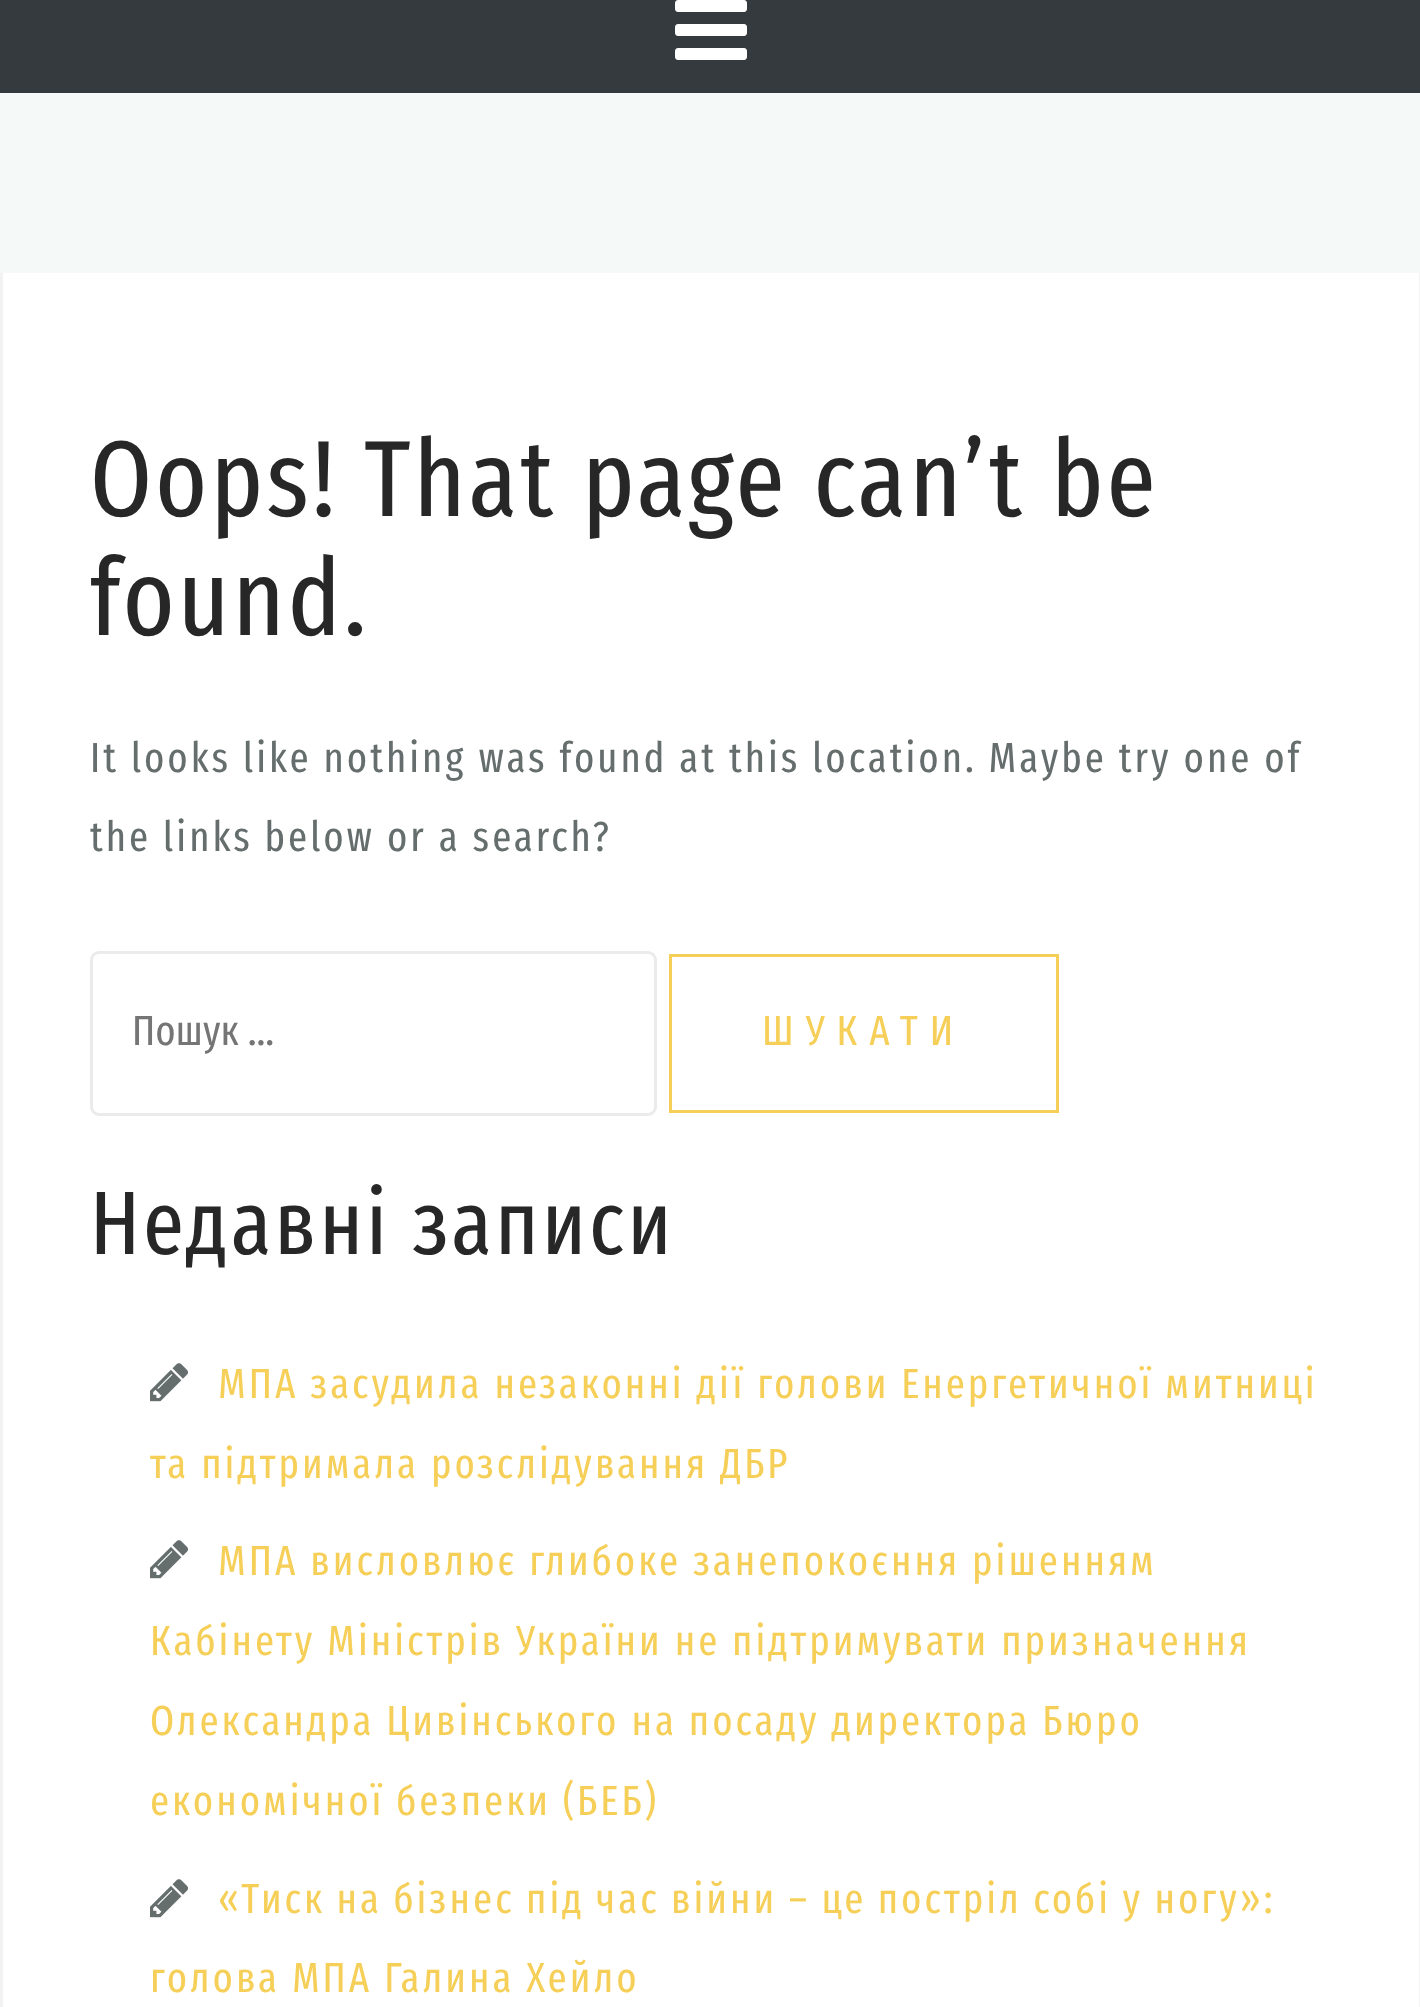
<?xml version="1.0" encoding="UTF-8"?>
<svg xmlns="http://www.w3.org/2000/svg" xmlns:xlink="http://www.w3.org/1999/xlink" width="1420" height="2007">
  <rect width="100%" height="100%" fill="#f5f9f8" />
  <rect width="1420" height="93" fill="#353a3e" />
  <image x="675" y="0" width="72" height="60" xlink:href="image1.png" />
  <rect x="3" y="273" width="1416" height="1734" fill="#ffffff" />
  <rect x="1419" y="273" width="1" height="1734" fill="#f2f2f3" />
  <rect y="273" width="3" height="1734" fill="#f2f2f3" />
  <rect x="91.5" y="952.5" width="564" height="162" rx="7.5" fill="none" stroke="#ebebeb" stroke-width="3" />
  <rect x="670.5" y="955.5" width="387" height="156" fill="none" stroke="#f6cf58" stroke-width="3" />
  <image x="150" y="1363" width="38" height="39" xlink:href="image2.png" />
  <image x="150" y="1540" width="38" height="39" xlink:href="image2.png" />
  <image x="150" y="1879" width="38" height="39" xlink:href="image2.png" />
  <text x="90" y="516" style="font-family: Fira Sans Extra Condensed; font-size: 108px; letter-spacing: 3px; fill: #272727">Oops! That page can’t be</text>
  <text x="90" y="635" style="font-family: Fira Sans Extra Condensed; font-size: 108px; letter-spacing: 3px; fill: #272727">found.</text>
  <text x="90" y="772" style="font-family: Fira Sans Extra Condensed; font-size: 42px; letter-spacing: 3px; fill: #656d6d">It looks like nothing was found at this location. Maybe try one of</text>
  <text x="90" y="851" style="font-family: Fira Sans Extra Condensed; font-size: 42px; letter-spacing: 3px; fill: #656d6d">the links below or a search?</text>
  <text x="132" y="1045" style="font-family: Fira Sans Extra Condensed; font-size: 42px; fill: #757575">Пошук …</text>
  <text x="762" y="1045" style="font-family: Fira Sans Extra Condensed; font-size: 42px; letter-spacing: 12px; fill: #f6cf58">ШУКАТИ</text>
  <text x="90" y="1254" style="font-family: Fira Sans Extra Condensed; font-size: 90px; letter-spacing: 3px; fill: #272727">Недавні записи</text>
  <text x="218" y="1398" style="font-family: Fira Sans Extra Condensed; font-size: 42px; letter-spacing: 3px; fill: #f6cf58">МПА засудила незаконні дії голови Енергетичної митниці</text>
  <text x="150" y="1478" style="font-family: Fira Sans Extra Condensed; font-size: 42px; letter-spacing: 3px; fill: #f6cf58">та підтримала розслідування ДБР</text>
  <text x="218" y="1575" style="font-family: Fira Sans Extra Condensed; font-size: 42px; letter-spacing: 3px; fill: #f6cf58">МПА висловлює глибоке занепокоєння рішенням</text>
  <text x="150" y="1655" style="font-family: Fira Sans Extra Condensed; font-size: 42px; letter-spacing: 3px; fill: #f6cf58">Кабінету Міністрів України не підтримувати призначення</text>
  <text x="150" y="1735" style="font-family: Fira Sans Extra Condensed; font-size: 42px; letter-spacing: 3px; fill: #f6cf58">Олександра Цивінського на посаду директора Бюро</text>
  <text x="150" y="1815" style="font-family: Fira Sans Extra Condensed; font-size: 42px; letter-spacing: 3px; fill: #f6cf58">економічної безпеки (БЕБ)</text>
  <text x="218" y="1913" word-spacing="-0.5" style="font-family: Fira Sans Extra Condensed; font-size: 42px; letter-spacing: 3px; fill: #f6cf58">«Тиск на бізнес під час війни – це постріл собі у ногу»:</text>
  <text x="150" y="1992" style="font-family: Fira Sans Extra Condensed; font-size: 42px; letter-spacing: 3px; fill: #f6cf58">голова МПА Галина Хейло</text>
</svg>
